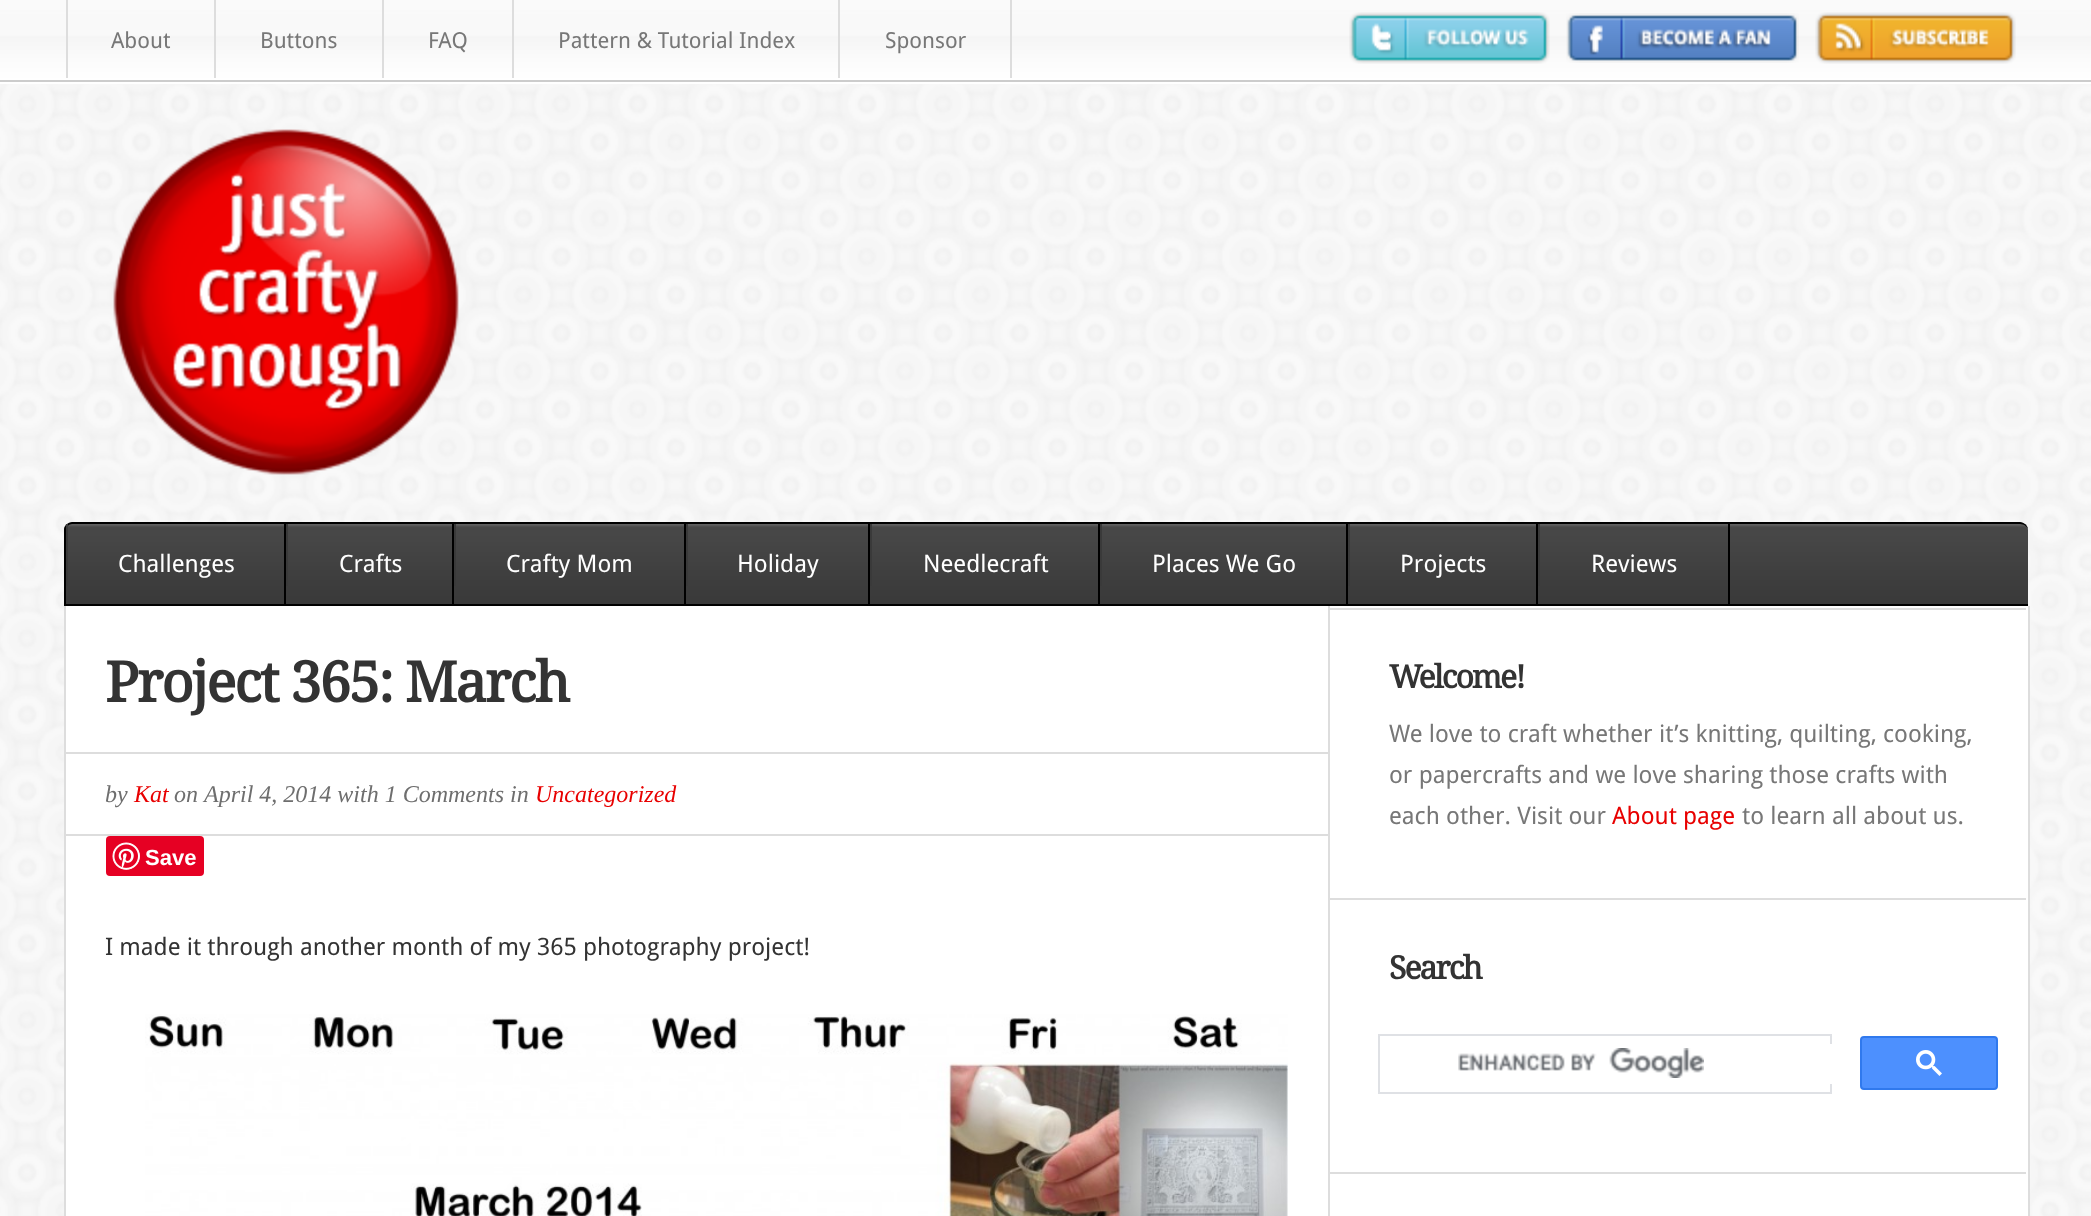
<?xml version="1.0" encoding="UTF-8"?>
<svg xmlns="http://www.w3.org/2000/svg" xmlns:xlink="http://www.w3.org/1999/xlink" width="2091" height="1216">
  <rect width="100%" height="100%" fill="#ffffff" />
  <image x="0" y="84" width="2091" height="1132" xlink:href="image1.png" />
  <image x="0" y="0" width="2091" height="80" xlink:href="image2.png" />
  <rect y="80" width="2091" height="2" fill="#cccccc" />
  <rect x="66" width="2" height="78" fill="#dddddd" />
  <rect x="214" width="2" height="78" fill="#dddddd" />
  <rect x="382" width="2" height="78" fill="#dddddd" />
  <rect x="512" width="2" height="78" fill="#dddddd" />
  <rect x="1010" width="2" height="78" fill="#dddddd" />
  <rect x="838" width="2" height="78" fill="#dddddd" />
  <image x="1349" y="12" width="201" height="52" xlink:href="image3.png" />
  <image x="1566" y="13" width="233" height="50" xlink:href="image4.png" />
  <image x="1815" y="12" width="201" height="52" xlink:href="image5.png" />
  <image x="113" y="129" width="346" height="346" xlink:href="image6.png" />
  <image x="64" y="524" width="1964" height="80" xlink:href="image7.png" />
  <path d="M 72 522 h 1948 c 4 0 8 4 8 8 v 76 h -1964 v -76 c 0 -4 4 -8 8 -8 z m 0 2 h 1948 c 4 0 8 3 8 6 v 74 h -1962 v -74 c 0 -3 3 -6 6 -6 z" fill="#000000" fill-rule="evenodd" />
  <rect x="284" y="524" width="2" height="80" fill="#000000" />
  <rect x="66" y="524" width="2" height="62" fill="#3a3a3a" />
  <rect x="452" y="524" width="2" height="80" fill="#000000" />
  <rect x="286" y="524" width="2" height="62" fill="#3a3a3a" />
  <rect x="684" y="524" width="2" height="80" fill="#000000" />
  <rect x="454" y="524" width="2" height="62" fill="#3a3a3a" />
  <rect x="868" y="524" width="2" height="80" fill="#000000" />
  <rect x="686" y="524" width="2" height="62" fill="#3a3a3a" />
  <rect x="1098" y="524" width="2" height="80" fill="#000000" />
  <rect x="870" y="524" width="2" height="62" fill="#3a3a3a" />
  <rect x="1346" y="524" width="2" height="80" fill="#000000" />
  <rect x="1100" y="524" width="2" height="62" fill="#3a3a3a" />
  <rect x="1536" y="524" width="2" height="80" fill="#000000" />
  <rect x="1348" y="524" width="2" height="62" fill="#3a3a3a" />
  <rect x="1728" y="524" width="2" height="80" fill="#000000" />
  <rect x="1538" y="524" width="2" height="62" fill="#3a3a3a" />
  <rect x="66" y="606" width="1962" height="610" fill="#ffffff" />
  <rect x="2028" y="606" width="2" height="610" fill="#dddddd" />
  <rect x="64" y="606" width="2" height="610" fill="#dddddd" />
  <rect x="1328" y="606" width="2" height="610" fill="#dddddd" />
  <rect x="66" y="752" width="1262" height="2" fill="#dddddd" />
  <rect x="66" y="834" width="1262" height="2" fill="#dddddd" />
  <rect x="106" y="836" width="98" height="40" rx="4" fill="#e60023" />
  <image x="112" y="842" width="28" height="28" xlink:href="image8.png" />
  <image x="145" y="1014" width="1143" height="202" xlink:href="image9.png" />
  <rect x="1330" y="608" width="696" height="2" fill="#dddddd" />
  <rect x="1330" y="898" width="696" height="2" fill="#dddddd" />
  <rect x="1379" y="1035" width="452" height="58" fill="none" stroke="#dfe1e5" stroke-width="2" />
  <rect x="1830" y="1044" width="2" height="40" fill="#ffffff" />
  <image x="1458" y="1048" width="246" height="30" xlink:href="image10.png" />
  <rect x="1861" y="1037" width="136" height="52" rx="3" fill="#4d90fe" stroke="#3079ed" stroke-width="2" />
  <image x="1916" y="1050" width="26" height="26" xlink:href="image11.png" />
  <rect x="1330" y="1172" width="696" height="2" fill="#dddddd" />
  <text x="111" y="48" style="font-family: Droid Sans; font-size: 22px; fill: #777777">About</text>
  <text x="260" y="48" style="font-family: Droid Sans; font-size: 22px; fill: #777777">Buttons</text>
  <text x="428" y="48" style="font-family: Droid Sans; font-size: 22px; fill: #777777">FAQ</text>
  <text x="558" y="48" style="font-family: Droid Sans; font-size: 22px; fill: #777777">Pattern &amp; Tutorial Index</text>
  <text x="885" y="48" style="font-family: Droid Sans; font-size: 22px; fill: #777777">Sponsor</text>
  <text x="118" y="572" style="font-family: Droid Sans; font-size: 24px; fill: #ffffff">Challenges</text>
  <text x="339" y="572" style="font-family: Droid Sans; font-size: 24px; fill: #ffffff">Crafts</text>
  <text x="506" y="572" style="font-family: Droid Sans; font-size: 24px; fill: #ffffff">Crafty Mom</text>
  <text x="737" y="572" style="font-family: Droid Sans; font-size: 24px; fill: #ffffff">Holiday</text>
  <text x="923" y="572" style="font-family: Droid Sans; font-size: 24px; fill: #ffffff">Needlecraft</text>
  <text x="1152" y="572" style="font-family: Droid Sans; font-size: 24px; fill: #ffffff">Places We Go</text>
  <text x="1400" y="572" style="font-family: Droid Sans; font-size: 24px; fill: #ffffff">Projects</text>
  <text x="1591" y="572" style="font-family: Droid Sans; font-size: 24px; fill: #ffffff">Reviews</text>
  <text x="105" y="702" style="font-family: Droid Serif; font-size: 56px; font-weight: bold; letter-spacing: -2px; fill: #333333">Project 365: March</text>
  <text x="105" y="802" style="font-family: Liberation Serif; font-size: 24px; font-style: italic; fill: #6e6e6e">by</text>
  <text x="134" y="802" style="font-family: Liberation Serif; font-size: 24px; font-style: italic; fill: #e80000">Kat</text>
  <text x="174" y="802" style="font-family: Liberation Serif; font-size: 24px; font-style: italic; fill: #6e6e6e">on</text>
  <text x="204" y="802" style="font-family: Liberation Serif; font-size: 24px; font-style: italic; fill: #6e6e6e">April 4, 2014 with 1 Comments in</text>
  <text x="535" y="802" style="font-family: Liberation Serif; font-size: 24px; font-style: italic; fill: #e80000">Uncategorized</text>
  <text x="145" y="865" style="font-family: Liberation Sans; font-size: 22px; font-weight: bold; fill: #ffffff">Save</text>
  <text x="105" y="955" style="font-family: Droid Sans; font-size: 24px; fill: #333333">I made it through another month of my 365 photography project!</text>
  <text x="1389" y="688" style="font-family: Droid Serif; font-size: 32px; font-weight: bold; letter-spacing: -2px; fill: #333333">Welcome!</text>
  <text x="1389" y="742" style="font-family: Droid Sans; font-size: 24px; fill: #777777">We love to craft whether it’s knitting, quilting, cooking,</text>
  <text x="1389" y="783" style="font-family: Droid Sans; font-size: 24px; fill: #777777">or papercrafts and we love sharing those crafts with</text>
  <text x="1389" y="824" style="font-family: Droid Sans; font-size: 24px; fill: #777777">each other. Visit our</text>
  <text x="1612" y="824" style="font-family: Droid Sans; font-size: 24px; fill: #e80000">About page</text>
  <text x="1742" y="824" style="font-family: Droid Sans; font-size: 24px; fill: #777777">to learn all about us.</text>
  <text x="1389" y="979" style="font-family: Droid Serif; font-size: 32px; font-weight: bold; letter-spacing: -2px; fill: #333333">Search</text>
</svg>
